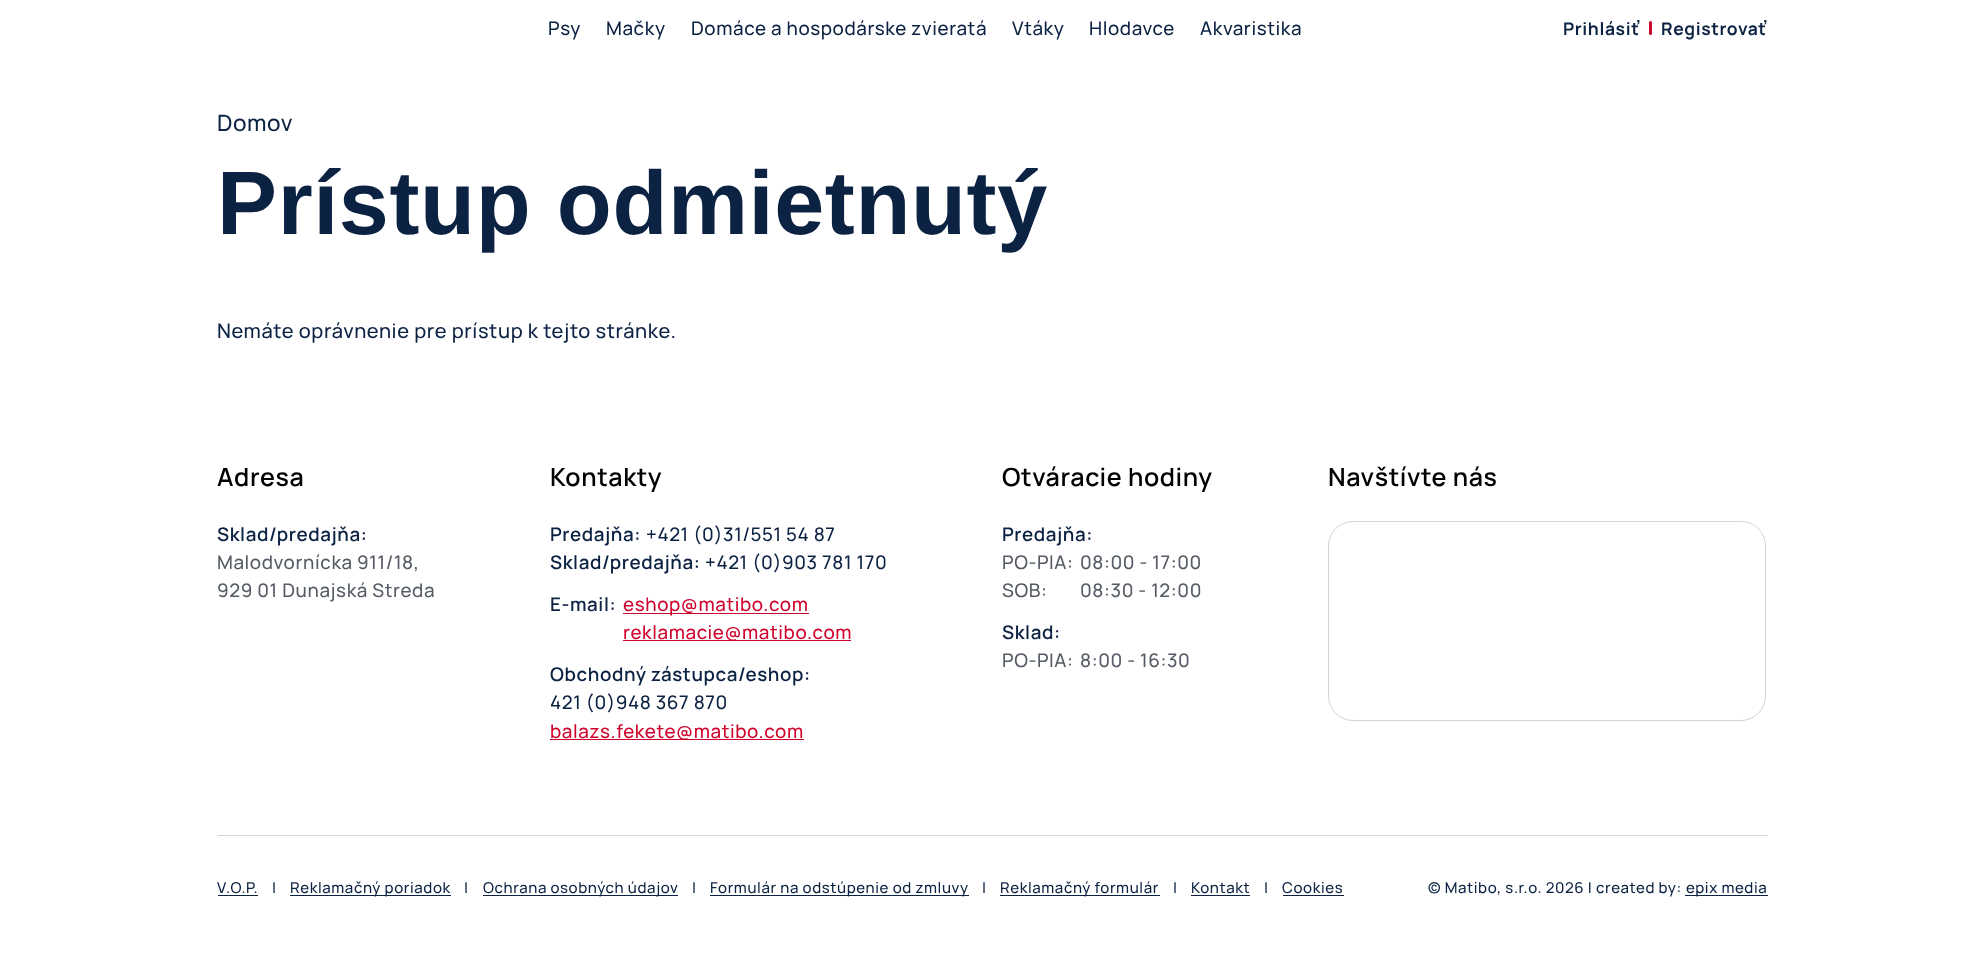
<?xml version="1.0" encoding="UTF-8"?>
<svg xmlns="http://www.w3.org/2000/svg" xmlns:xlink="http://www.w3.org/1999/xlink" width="1983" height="953">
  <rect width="100%" height="100%" fill="#ffffff" />
  <rect x="1649" y="21" width="3" height="14" rx="1.5" fill="#cf032c" />
  <rect x="623" y="613" width="186" height="1" fill="#cf032c" />
  <rect x="623" y="640" width="228" height="1" fill="#cf032c" />
  <rect x="550" y="739" width="254" height="1" fill="#cf032c" />
  <rect x="1328.5" y="521.5" width="437" height="199" rx="24.5" fill="none" stroke="#d3d3d3" />
  <rect x="218" y="835" width="1550" height="1" fill="#d3d3d3" />
  <rect x="218" y="895" width="40" height="1" fill="#0c2243" />
  <rect x="290" y="895" width="161" height="1" fill="#0c2243" />
  <rect x="483" y="895" width="195" height="1" fill="#0c2243" />
  <rect x="710" y="895" width="259" height="1" fill="#0c2243" />
  <rect x="1000" y="895" width="160" height="1" fill="#0c2243" />
  <rect x="1191" y="895" width="59" height="1" fill="#0c2243" />
  <rect x="1283" y="895" width="61" height="1" fill="#0c2243" />
  <rect x="1685" y="895" width="83" height="1" fill="#0c2243" />
  <text x="548" y="35" style="font-family: Manrope; font-size: 18.75px; font-weight: 200; letter-spacing: 0.6px; fill: #0c2243">Psy</text>
  <text x="606" y="35" style="font-family: Manrope; font-size: 18.75px; font-weight: 200; letter-spacing: 0.6px; fill: #0c2243">Mačky</text>
  <text x="691" y="35" style="font-family: Manrope; font-size: 18.75px; font-weight: 200; letter-spacing: 0.6px; fill: #0c2243">Domáce a hospodárske zvieratá</text>
  <text x="1012" y="35" style="font-family: Manrope; font-size: 18.75px; font-weight: 200; letter-spacing: 0.6px; fill: #0c2243">Vtáky</text>
  <text x="1089" y="35" style="font-family: Manrope; font-size: 18.75px; font-weight: 200; letter-spacing: 0.6px; fill: #0c2243">Hlodavce</text>
  <text x="1200" y="35" style="font-family: Manrope; font-size: 18.75px; font-weight: 200; letter-spacing: 0.6px; fill: #0c2243">Akvaristika</text>
  <text x="1563" y="35" style="font-family: 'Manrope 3'; font-size: 17.5px; font-weight: 200; letter-spacing: 0.6px; fill: #0c2243">Prihlásiť</text>
  <text x="1661" y="35" style="font-family: 'Manrope 3'; font-size: 17.5px; font-weight: 200; letter-spacing: 0.6px; fill: #0c2243">Registrovať</text>
  <text x="217" y="131" style="font-family: Manrope; font-size: 22.5px; font-weight: 200; letter-spacing: 0.6px; fill: #0c2243">Domov</text>
  <text x="217" y="234" style="font-family: Liberation Sans; font-size: 90px; font-weight: bold; letter-spacing: 0.6px; fill: #0c2243">Prístup odmietnutý</text>
  <text x="217" y="338" style="font-family: Manrope; font-size: 20px; font-weight: 200; letter-spacing: 0.6px; fill: #0c2243">Nemáte oprávnenie pre prístup k tejto stránke.</text>
  <text x="217" y="486" style="font-family: 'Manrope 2'; font-size: 25px; font-weight: 200; letter-spacing: 0.6px; fill: #000000">Adresa</text>
  <text x="217" y="541" style="font-family: 'Manrope 2'; font-size: 18.75px; font-weight: 200; letter-spacing: 0.6px; fill: #0c2243">Sklad/predajňa:</text>
  <text x="217" y="569" style="font-family: Manrope; font-size: 18.75px; font-weight: 200; letter-spacing: 0.6px; fill: #565c65">Malodvornícka 911/18,</text>
  <text x="217" y="597" style="font-family: Manrope; font-size: 18.75px; font-weight: 200; letter-spacing: 0.6px; fill: #565c65">929 01 Dunajská Streda</text>
  <text x="550" y="486" style="font-family: 'Manrope 2'; font-size: 25px; font-weight: 200; letter-spacing: 0.6px; fill: #000000">Kontakty</text>
  <text x="550" y="541" style="font-family: 'Manrope 2'; font-size: 18.75px; font-weight: 200; letter-spacing: 0.6px; fill: #0c2243">Predajňa:</text>
  <text x="646" y="541" style="font-family: Manrope; font-size: 18.75px; font-weight: 200; letter-spacing: 0.6px; fill: #0c2243">+421 (0)31/551 54 87</text>
  <text x="550" y="569" style="font-family: 'Manrope 2'; font-size: 18.75px; font-weight: 200; letter-spacing: 0.6px; fill: #0c2243">Sklad/predajňa:</text>
  <text x="705" y="569" style="font-family: Manrope; font-size: 18.75px; font-weight: 200; letter-spacing: 0.6px; fill: #0c2243">+421 (0)903 781 170</text>
  <text x="550" y="611" style="font-family: 'Manrope 2'; font-size: 18.75px; font-weight: 200; letter-spacing: 0.6px; fill: #0c2243">E-mail:</text>
  <text x="623" y="611" style="font-family: Manrope; font-size: 18.75px; font-weight: 200; letter-spacing: 0.6px; fill: #cf032c">eshop@matibo.com</text>
  <text x="623" y="639" style="font-family: Manrope; font-size: 18.75px; font-weight: 200; letter-spacing: 0.6px; fill: #cf032c">reklamacie@matibo.com</text>
  <text x="550" y="681" style="font-family: 'Manrope 2'; font-size: 18.75px; font-weight: 200; letter-spacing: 0.6px; fill: #0c2243">Obchodný zástupca/eshop:</text>
  <text x="550" y="709" style="font-family: Manrope; font-size: 18.75px; font-weight: 200; letter-spacing: 0.6px; fill: #0c2243">421 (0)948 367 870</text>
  <text x="550" y="738" style="font-family: Manrope; font-size: 18.75px; font-weight: 200; letter-spacing: 0.6px; fill: #cf032c">balazs.fekete@matibo.com</text>
  <text x="1002" y="486" style="font-family: 'Manrope 2'; font-size: 25px; font-weight: 200; letter-spacing: 0.6px; fill: #000000">Otváracie hodiny</text>
  <text x="1002" y="541" style="font-family: 'Manrope 2'; font-size: 18.75px; font-weight: 200; letter-spacing: 0.6px; fill: #0c2243">Predajňa:</text>
  <text x="1002" y="569" style="font-family: Manrope; font-size: 18.75px; font-weight: 200; letter-spacing: 0.6px; fill: #565c65">PO-PIA:</text>
  <text x="1080" y="569" style="font-family: Manrope; font-size: 18.75px; font-weight: 200; letter-spacing: 0.6px; fill: #565c65">08:00 - 17:00</text>
  <text x="1002" y="597" style="font-family: Manrope; font-size: 18.75px; font-weight: 200; letter-spacing: 0.6px; fill: #565c65">SOB:</text>
  <text x="1080" y="597" style="font-family: Manrope; font-size: 18.75px; font-weight: 200; letter-spacing: 0.6px; fill: #565c65">08:30 - 12:00</text>
  <text x="1002" y="639" style="font-family: 'Manrope 2'; font-size: 18.75px; font-weight: 200; letter-spacing: 0.6px; fill: #0c2243">Sklad:</text>
  <text x="1002" y="667" style="font-family: Manrope; font-size: 18.75px; font-weight: 200; letter-spacing: 0.6px; fill: #565c65">PO-PIA:</text>
  <text x="1080" y="667" style="font-family: Manrope; font-size: 18.75px; font-weight: 200; letter-spacing: 0.6px; fill: #565c65">8:00 - 16:30</text>
  <text x="1328" y="486" style="font-family: 'Manrope 2'; font-size: 25px; font-weight: 200; letter-spacing: 0.6px; fill: #000000">Navštívte nás</text>
  <text x="217" y="893" style="font-family: Manrope; font-size: 15px; font-weight: 200; letter-spacing: 0.6px; fill: #0c2243">V.O.P.</text>
  <text x="272" y="893" style="font-family: Manrope; font-size: 15px; font-weight: 200; letter-spacing: 0.6px; fill: #0c2243">|</text>
  <text x="290" y="893" style="font-family: Manrope; font-size: 15px; font-weight: 200; letter-spacing: 0.6px; fill: #0c2243">Reklamačný poriadok</text>
  <text x="464" y="893" style="font-family: Manrope; font-size: 15px; font-weight: 200; letter-spacing: 0.6px; fill: #0c2243">|</text>
  <text x="483" y="893" style="font-family: Manrope; font-size: 15px; font-weight: 200; letter-spacing: 0.6px; fill: #0c2243">Ochrana osobných údajov</text>
  <text x="692" y="893" style="font-family: Manrope; font-size: 15px; font-weight: 200; letter-spacing: 0.6px; fill: #0c2243">|</text>
  <text x="710" y="893" style="font-family: Manrope; font-size: 15px; font-weight: 200; letter-spacing: 0.6px; fill: #0c2243">Formulár na odstúpenie od zmluvy</text>
  <text x="982" y="893" style="font-family: Manrope; font-size: 15px; font-weight: 200; letter-spacing: 0.6px; fill: #0c2243">|</text>
  <text x="1000" y="893" style="font-family: Manrope; font-size: 15px; font-weight: 200; letter-spacing: 0.6px; fill: #0c2243">Reklamačný formulár</text>
  <text x="1173" y="893" style="font-family: Manrope; font-size: 15px; font-weight: 200; letter-spacing: 0.6px; fill: #0c2243">|</text>
  <text x="1191" y="893" style="font-family: Manrope; font-size: 15px; font-weight: 200; letter-spacing: 0.6px; fill: #0c2243">Kontakt</text>
  <text x="1264" y="893" style="font-family: Manrope; font-size: 15px; font-weight: 200; letter-spacing: 0.6px; fill: #0c2243">|</text>
  <text x="1282" y="893" style="font-family: Manrope; font-size: 15px; font-weight: 200; letter-spacing: 0.6px; fill: #0c2243">Cookies</text>
  <text x="1428" y="893" style="font-family: Manrope; font-size: 15px; font-weight: 200; letter-spacing: 0.6px; fill: #0c2243">© Matibo, s.r.o. 2026 | created by:</text>
  <text x="1686" y="893" style="font-family: Manrope; font-size: 15px; font-weight: 200; letter-spacing: 0.6px; fill: #0c2243">epix media</text>
</svg>
